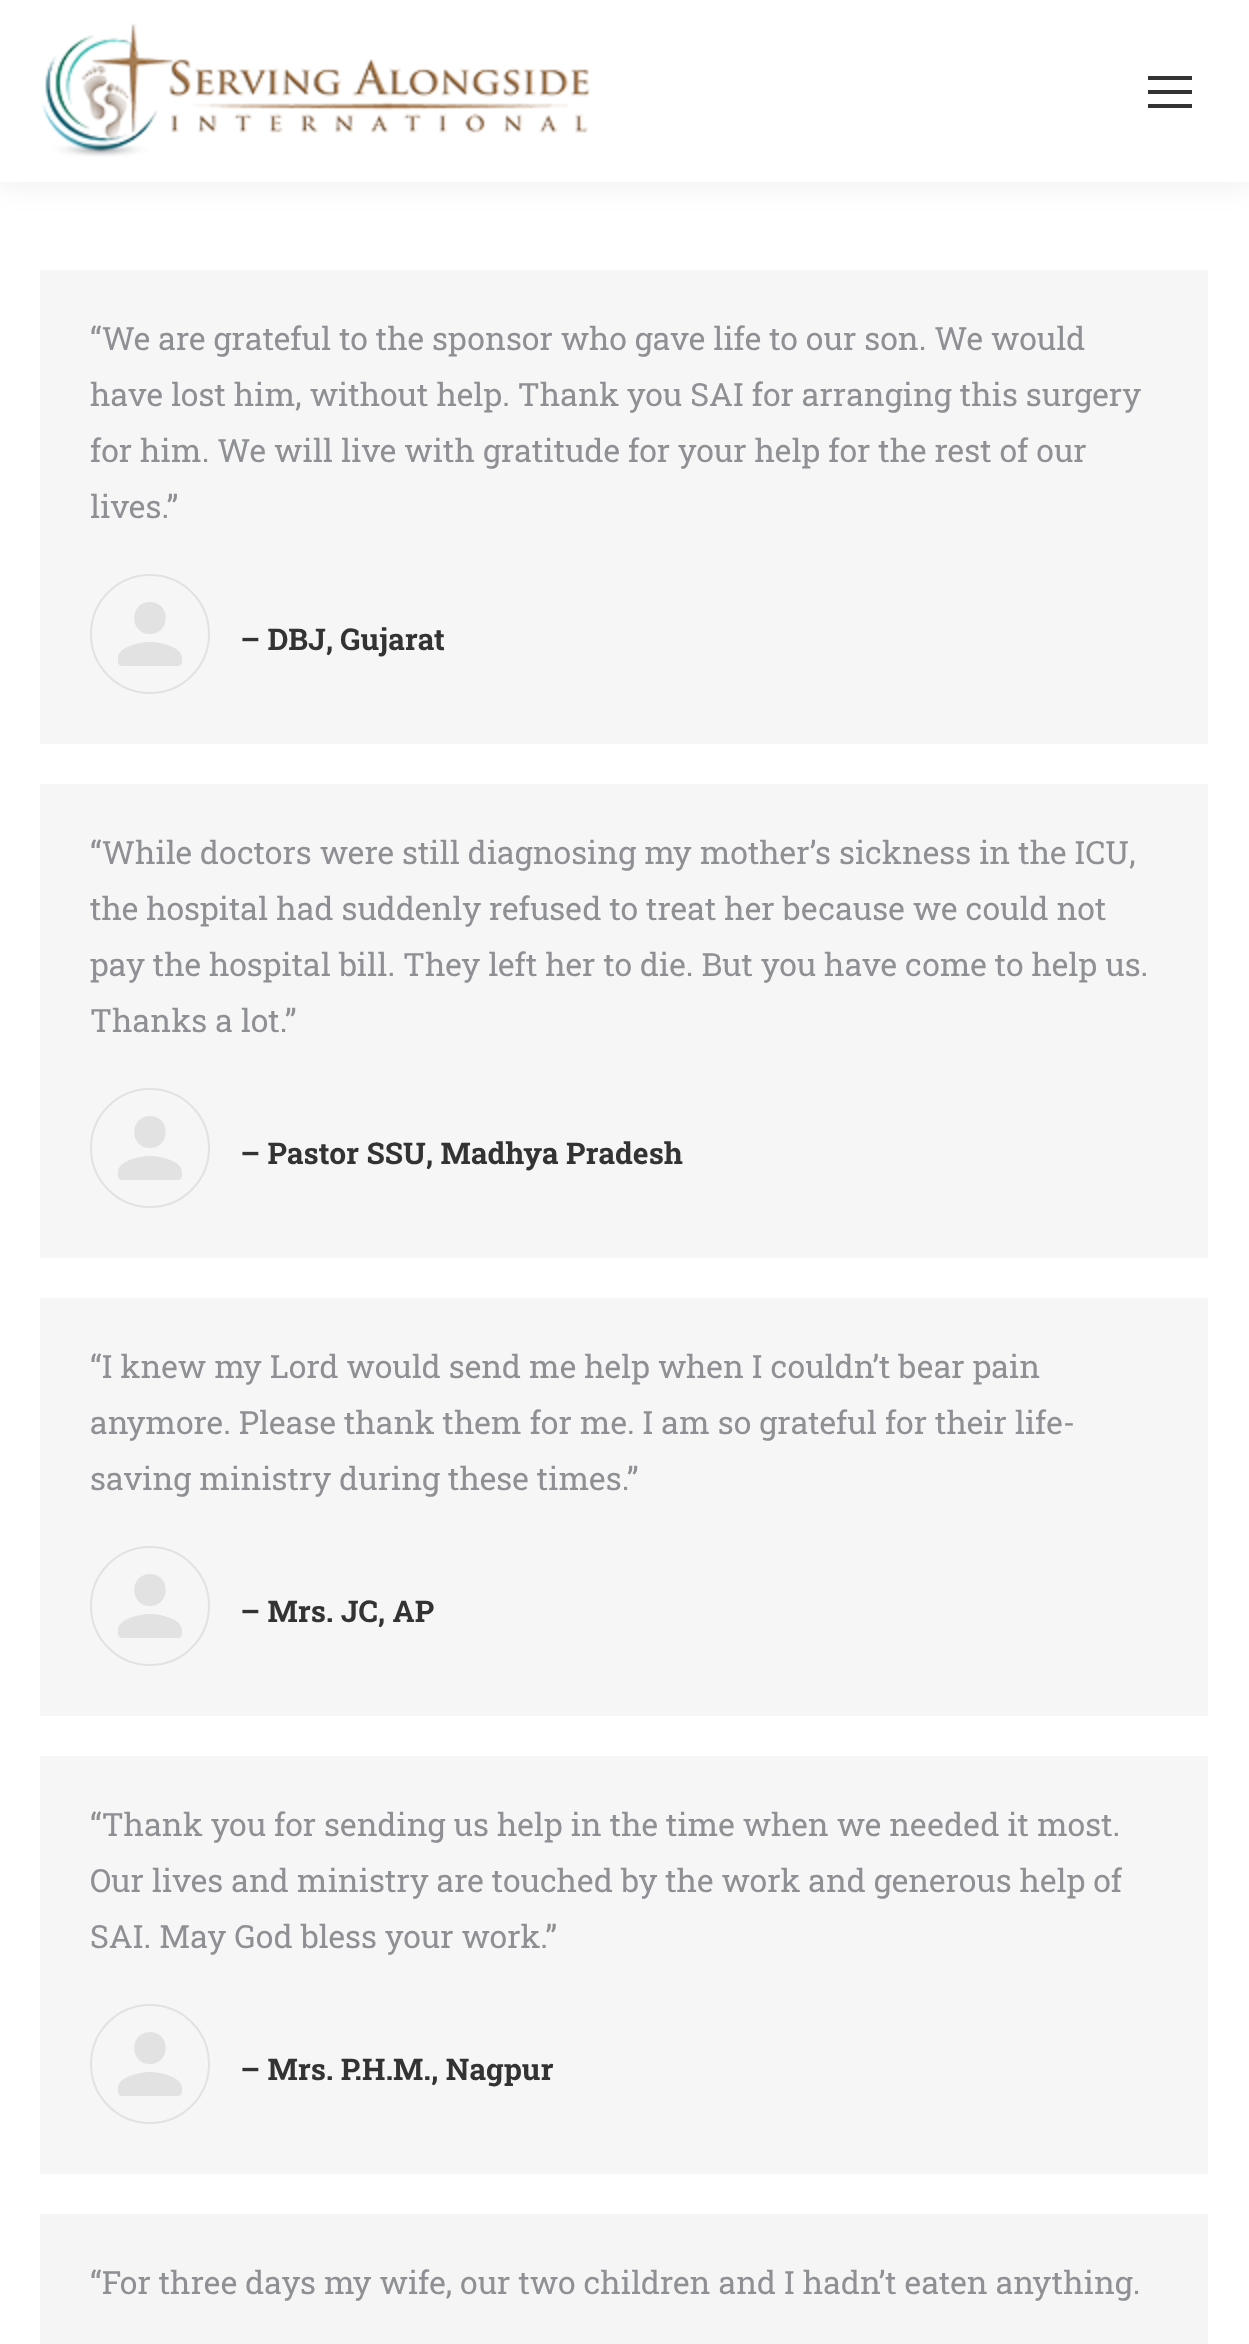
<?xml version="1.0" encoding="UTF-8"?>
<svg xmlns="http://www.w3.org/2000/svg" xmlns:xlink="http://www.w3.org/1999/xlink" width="1249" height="2344">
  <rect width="100%" height="100%" fill="#ffffff" />
  <rect x="-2" y="-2" width="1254" height="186" fill="#000000" fill-opacity="0.07" filter="blur(15px)" />
  <rect width="1249" height="182" fill="#ffffff" />
  <image x="41" y="23" width="549" height="134" xlink:href="image1.png" />
  <rect x="1148" y="76" width="44" height="4" fill="#333333" />
  <rect x="1148" y="90" width="44" height="4" fill="#333333" />
  <rect x="1148" y="104" width="44" height="4" fill="#333333" />
  <rect x="40" y="270" width="1168" height="474" fill="#f6f6f6" />
  <circle cx="150" cy="634" r="59" fill="none" stroke="#e2e2e2" stroke-width="2" />
  <path d="M 150 634 c 21 0 21 -32 0 -32 c -21 0 -21 32 0 32 z m 0 8 c -11 0 -32 5 -32 16 v 4 c 0 2 2 4 4 4 h 56 c 2 0 4 -2 4 -4 v -4 c 0 -11 -21 -16 -32 -16 z" fill="#e2e2e2" />
  <rect x="40" y="784" width="1168" height="474" fill="#f6f6f6" />
  <circle cx="150" cy="1148" r="59" fill="none" stroke="#e2e2e2" stroke-width="2" />
  <path d="M 150 1148 c 21 0 21 -32 0 -32 c -21 0 -21 32 0 32 z m 0 8 c -11 0 -32 5 -32 16 v 4 c 0 2 2 4 4 4 h 56 c 2 0 4 -2 4 -4 v -4 c 0 -11 -21 -16 -32 -16 z" fill="#e2e2e2" />
  <rect x="40" y="1298" width="1168" height="418" fill="#f6f6f6" />
  <circle cx="150" cy="1606" r="59" fill="none" stroke="#e2e2e2" stroke-width="2" />
  <path d="M 150 1606 c 21 0 21 -32 0 -32 c -21 0 -21 32 0 32 z m 0 8 c -11 0 -32 5 -32 16 v 4 c 0 2 2 4 4 4 h 56 c 2 0 4 -2 4 -4 v -4 c 0 -11 -21 -16 -32 -16 z" fill="#e2e2e2" />
  <rect x="40" y="1756" width="1168" height="418" fill="#f6f6f6" />
  <circle cx="150" cy="2064" r="59" fill="none" stroke="#e2e2e2" stroke-width="2" />
  <path d="M 150 2064 c 21 0 21 -32 0 -32 c -21 0 -21 32 0 32 z m 0 8 c -11 0 -32 5 -32 16 v 4 c 0 2 2 4 4 4 h 56 c 2 0 4 -2 4 -4 v -4 c 0 -11 -21 -16 -32 -16 z" fill="#e2e2e2" />
  <rect x="40" y="2214" width="1168" height="130" fill="#f5f5f5" />
  <text x="90" y="350" style="font-family: Roboto Slab; font-size: 32px; fill: #8f9093">“We are grateful to the sponsor who gave life to our son. We would</text>
  <text x="90" y="406" style="font-family: Roboto Slab; font-size: 32px; fill: #8f9093">have lost him, without help. Thank you SAI for arranging this surgery</text>
  <text x="90" y="462" style="font-family: Roboto Slab; font-size: 32px; fill: #8f9093">for him. We will live with gratitude for your help for the rest of our</text>
  <text x="90" y="518" style="font-family: Roboto Slab; font-size: 32px; fill: #8f9093">lives.”</text>
  <text x="240" y="650" style="font-family: Roboto Slab; font-size: 30px; font-weight: bold; fill: #333333">– DBJ, Gujarat</text>
  <text x="90" y="864" style="font-family: Roboto Slab; font-size: 32px; fill: #8f9093">“While doctors were still diagnosing my mother’s sickness in the ICU,</text>
  <text x="90" y="920" style="font-family: Roboto Slab; font-size: 32px; fill: #8f9093">the hospital had suddenly refused to treat her because we could not</text>
  <text x="90" y="976" style="font-family: Roboto Slab; font-size: 32px; fill: #8f9093">pay the hospital bill. They left her to die. But you have come to help us.</text>
  <text x="90" y="1032" style="font-family: Roboto Slab; font-size: 32px; fill: #8f9093">Thanks a lot.”</text>
  <text x="240" y="1164" style="font-family: Roboto Slab; font-size: 30px; font-weight: bold; fill: #333333">– Pastor SSU, Madhya Pradesh</text>
  <text x="90" y="1378" style="font-family: Roboto Slab; font-size: 32px; fill: #8f9093">“I knew my Lord would send me help when I couldn’t bear pain</text>
  <text x="90" y="1434" style="font-family: Roboto Slab; font-size: 32px; fill: #8f9093">anymore. Please thank them for me. I am so grateful for their life-</text>
  <text x="90" y="1490" style="font-family: Roboto Slab; font-size: 32px; fill: #8f9093">saving ministry during these times.”</text>
  <text x="240" y="1622" style="font-family: Roboto Slab; font-size: 30px; font-weight: bold; fill: #333333">– Mrs. JC, AP</text>
  <text x="90" y="1836" style="font-family: Roboto Slab; font-size: 32px; fill: #8f9093">“Thank you for sending us help in the time when we needed it most.</text>
  <text x="90" y="1892" style="font-family: Roboto Slab; font-size: 32px; fill: #8f9093">Our lives and ministry are touched by the work and generous help of</text>
  <text x="90" y="1948" style="font-family: Roboto Slab; font-size: 32px; fill: #8f9093">SAI. May God bless your work.”</text>
  <text x="240" y="2080" style="font-family: Roboto Slab; font-size: 30px; font-weight: bold; fill: #333333">– Mrs. P.H.M., Nagpur</text>
  <text x="90" y="2294" style="font-family: Roboto Slab; font-size: 32px; fill: #8f9093">“For three days my wife, our two children and I hadn’t eaten anything.</text>
</svg>
